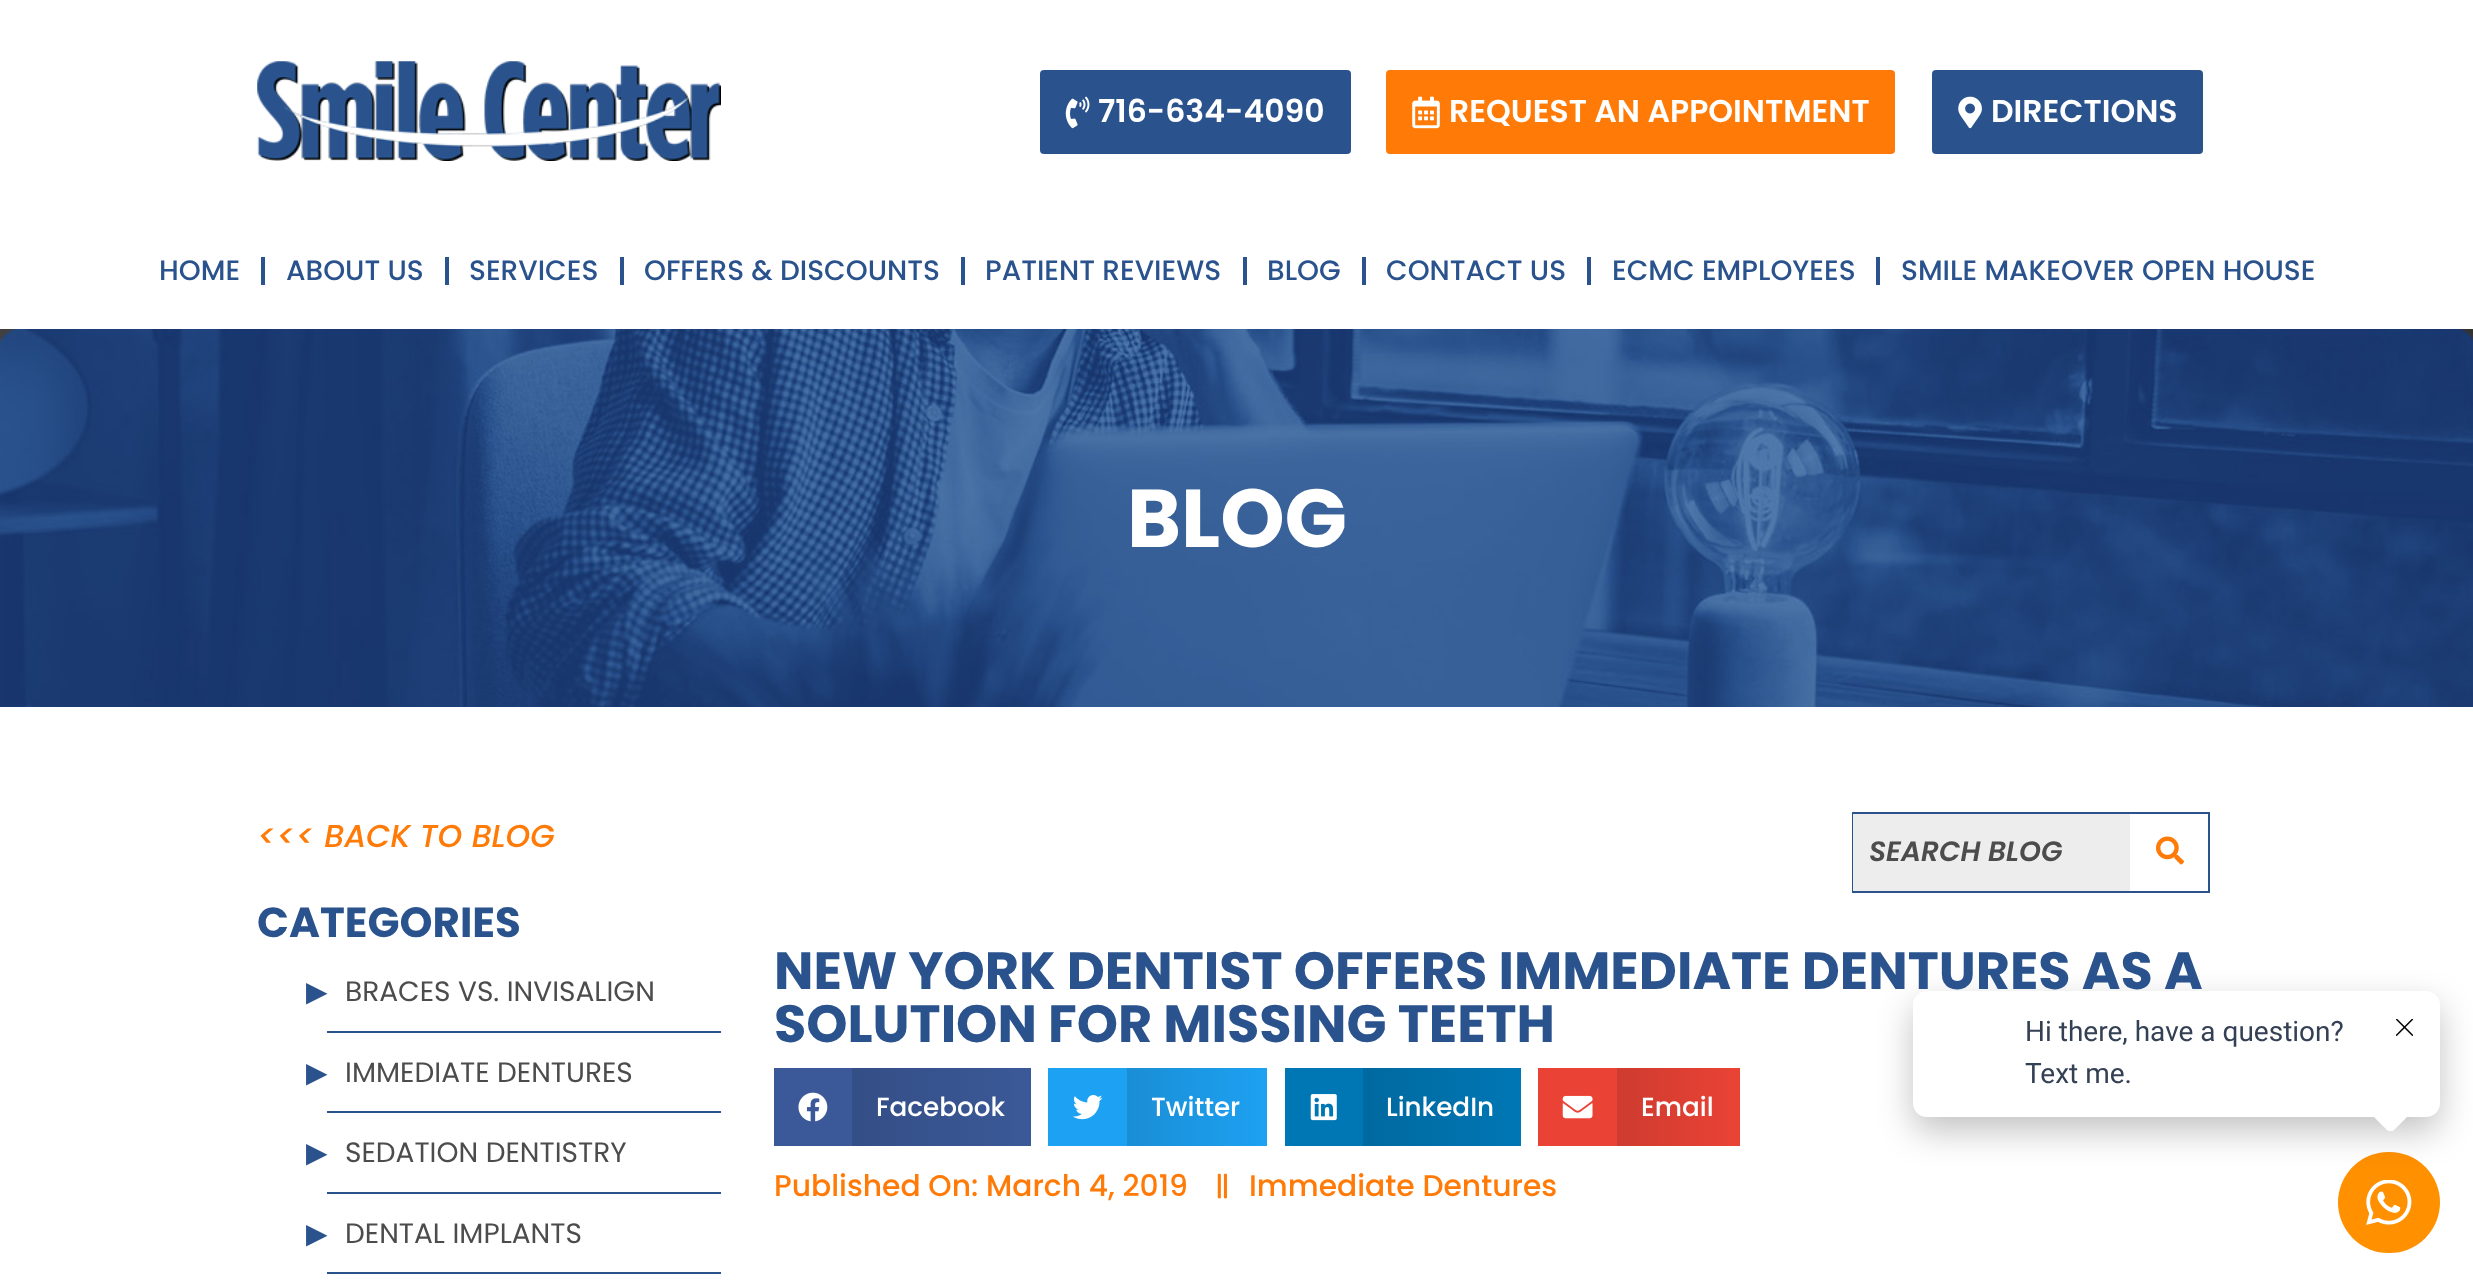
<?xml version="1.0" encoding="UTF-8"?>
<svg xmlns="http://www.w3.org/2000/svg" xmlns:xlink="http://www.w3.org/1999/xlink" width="2473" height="1288">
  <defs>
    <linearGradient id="g1" gradientUnits="userSpaceOnUse" x1="852" y1="1107" x2="1031" y2="1107"><stop offset="0" stop-color="#344e86" /><stop offset="1" stop-color="#3b5998" /></linearGradient>
    <linearGradient id="g2" gradientUnits="userSpaceOnUse" x1="1127" y1="1107" x2="1267" y2="1107"><stop offset="0" stop-color="#1a8ed5" /><stop offset="1" stop-color="#1da1f2" /></linearGradient>
    <linearGradient id="g3" gradientUnits="userSpaceOnUse" x1="1363" y1="1107" x2="1521" y2="1107"><stop offset="0" stop-color="#00699f" /><stop offset="1" stop-color="#0077b5" /></linearGradient>
    <linearGradient id="g4" gradientUnits="userSpaceOnUse" x1="1617" y1="1107" x2="1740" y2="1107"><stop offset="0" stop-color="#ce3b2f" /><stop offset="1" stop-color="#ea4335" /></linearGradient>
  </defs>
  <rect width="100%" height="100%" fill="#ffffff" />
  <image x="257" y="61" width="464" height="100" xlink:href="image1.png" />
  <rect x="1040" y="70" width="311" height="84" rx="4" fill="#2a538e" />
  <image x="1065" y="96" width="25" height="33" xlink:href="image2.png" />
  <rect x="1386" y="70" width="509" height="84" rx="4" fill="#ff7a06" />
  <image x="1412" y="96" width="28" height="33" xlink:href="image3.png" />
  <rect x="1932" y="70" width="271" height="84" rx="4" fill="#2a538e" />
  <image x="1958" y="96" width="24" height="33" xlink:href="image4.png" />
  <rect x="261" y="257" width="4" height="28" fill="#2a538e" />
  <rect x="445" y="257" width="4" height="28" fill="#2a538e" />
  <rect x="620" y="257" width="4" height="28" fill="#2a538e" />
  <rect x="961" y="257" width="4" height="28" fill="#2a538e" />
  <rect x="1243" y="257" width="4" height="28" fill="#2a538e" />
  <rect x="1362" y="257" width="4" height="28" fill="#2a538e" />
  <rect x="1587" y="257" width="4" height="28" fill="#2a538e" />
  <rect x="1876" y="257" width="4" height="28" fill="#2a538e" />
  <image x="0" y="329" width="2473" height="378" xlink:href="image5.png" />
  <rect x="327" y="1031" width="394" height="2" fill="#2a538e" />
  <rect x="327" y="1111" width="394" height="2" fill="#2a538e" />
  <rect x="327" y="1192" width="394" height="2" fill="#2a538e" />
  <rect x="327" y="1272" width="394" height="2" fill="#2a538e" />
  <rect x="1853" y="813" width="356" height="79" fill="none" stroke="#2a538e" stroke-width="2" />
  <rect x="1853" y="814" width="277" height="77" fill="#ededed" />
  <image x="2156" y="836" width="28" height="29" xlink:href="image6.png" />
  <rect x="774" y="1068" width="78" height="78" fill="#3b5998" />
  <image x="798" y="1092" width="30" height="30" xlink:href="image7.png" />
  <rect x="852" y="1068" width="179" height="78" fill="url(#g1)" />
  <rect x="1048" y="1068" width="79" height="78" fill="#1da1f2" />
  <image x="1073" y="1095" width="30" height="25" xlink:href="image8.png" />
  <rect x="1127" y="1068" width="140" height="78" fill="url(#g2)" />
  <rect x="1285" y="1068" width="78" height="78" fill="#0077b5" />
  <image x="1310" y="1094" width="27" height="27" xlink:href="image9.png" />
  <rect x="1363" y="1068" width="158" height="78" fill="url(#g3)" />
  <rect x="1538" y="1068" width="79" height="78" fill="#ea4335" />
  <image x="1562" y="1095" width="31" height="24" xlink:href="image10.png" />
  <rect x="1617" y="1068" width="123" height="78" fill="url(#g4)" />
  <image x="1217" y="1173" width="10" height="26" xlink:href="image11.png" />
  <rect x="2338" y="1152" width="102" height="101" rx="50.5" fill="#ff9000" />
  <image x="2366" y="1180" width="46" height="45" xlink:href="image13.png" />
  <rect x="1913" y="1005" width="527" height="126" rx="14" fill="#000000" fill-opacity="0.24" filter="blur(17.5px)" />
  <rect x="1913" y="991" width="527" height="126" rx="14" fill="#ffffff" />
  <path d="M 2395 1090 l 15 15 c 3 2 3 7 0 9 l -15 15 c -2 3 -7 3 -9 0 l -15 -15 c -3 -2 -3 -7 0 -9 l 15 -15 c 2 -3 7 -3 9 0 z" fill="#ffffff" />
  <image x="2396" y="1019" width="17" height="17" xlink:href="image12.png" />
  <text x="1098" y="122" style="font-family: Poppins; font-size: 31.5px; font-weight: 600; fill: #ffffff">716-634-4090</text>
  <text x="1449" y="122" style="font-family: Poppins; font-size: 31.5px; font-weight: 600; fill: #ffffff">REQUEST AN APPOINTMENT</text>
  <text x="1991" y="122" style="font-family: Poppins; font-size: 31.5px; font-weight: 600; fill: #ffffff">DIRECTIONS</text>
  <text x="159" y="280" style="font-family: Poppins; font-size: 28px; font-weight: 500; fill: #2a538e">HOME</text>
  <text x="286" y="280" style="font-family: Poppins; font-size: 28px; font-weight: 500; fill: #2a538e">ABOUT US</text>
  <text x="469" y="280" style="font-family: Poppins; font-size: 28px; font-weight: 500; fill: #2a538e">SERVICES</text>
  <text x="644" y="280" style="font-family: Poppins; font-size: 28px; font-weight: 500; fill: #2a538e">OFFERS &amp; DISCOUNTS</text>
  <text x="985" y="280" style="font-family: Poppins; font-size: 28px; font-weight: 500; fill: #2a538e">PATIENT REVIEWS</text>
  <text x="1267" y="280" style="font-family: Poppins; font-size: 28px; font-weight: 500; fill: #2a538e">BLOG</text>
  <text x="1386" y="280" style="font-family: Poppins; font-size: 28px; font-weight: 500; fill: #2a538e">CONTACT US</text>
  <text x="1612" y="280" style="font-family: Poppins; font-size: 28px; font-weight: 500; fill: #2a538e">ECMC EMPLOYEES</text>
  <text x="1901" y="280" style="font-family: Poppins; font-size: 28px; font-weight: 500; fill: #2a538e">SMILE MAKEOVER OPEN HOUSE</text>
  <text x="1127" y="547" style="font-family: Poppins; font-size: 82px; font-weight: bold; fill: #ffffff">BLOG</text>
  <text x="257" y="847" style="font-family: Poppins; font-size: 31.5px; font-weight: 500; font-style: italic; fill: #ff7a06">&lt;&lt;&lt; BACK TO BLOG</text>
  <text x="257" y="937" style="font-family: Poppins; font-size: 42px; font-weight: bold; fill: #2a538e">CATEGORIES</text>
  <text x="306" y="1001" style="font-family: DejaVu Sans; font-size: 28px; fill: #2a538e">▶</text>
  <text x="345" y="1001" style="font-family: Poppins; font-size: 28px; fill: #4c4c4c">BRACES VS. INVISALIGN</text>
  <text x="306" y="1082" style="font-family: DejaVu Sans; font-size: 28px; fill: #2a538e">▶</text>
  <text x="345" y="1082" style="font-family: Poppins; font-size: 28px; fill: #4c4c4c">IMMEDIATE DENTURES</text>
  <text x="306" y="1162" style="font-family: DejaVu Sans; font-size: 28px; fill: #2a538e">▶</text>
  <text x="345" y="1162" style="font-family: Poppins; font-size: 28px; fill: #4c4c4c">SEDATION DENTISTRY</text>
  <text x="306" y="1243" style="font-family: DejaVu Sans; font-size: 28px; fill: #2a538e">▶</text>
  <text x="345" y="1243" style="font-family: Poppins; font-size: 28px; fill: #4c4c4c">DENTAL IMPLANTS</text>
  <text x="1869" y="861" style="font-family: Poppins; font-size: 28px; font-weight: 600; font-style: italic; fill: #4c4c4c">SEARCH BLOG</text>
  <text x="774" y="989" style="font-family: Poppins; font-size: 52.5px; font-weight: bold; fill: #2a538e">NEW YORK DENTIST OFFERS IMMEDIATE DENTURES AS A</text>
  <text x="774" y="1042" style="font-family: Poppins; font-size: 52.5px; font-weight: bold; fill: #2a538e">SOLUTION FOR MISSING TEETH</text>
  <text x="876" y="1116" style="font-family: Poppins; font-size: 26.25px; font-weight: 500; fill: #ffffff">Facebook</text>
  <text x="1151" y="1116" style="font-family: Poppins; font-size: 26.25px; font-weight: 500; fill: #ffffff">Twitter</text>
  <text x="1386" y="1116" style="font-family: Poppins; font-size: 26.25px; font-weight: 500; fill: #ffffff">LinkedIn</text>
  <text x="1641" y="1116" style="font-family: Poppins; font-size: 26.25px; font-weight: 500; fill: #ffffff">Email</text>
  <text x="774" y="1196" style="font-family: Poppins; font-size: 29.75px; font-weight: 500; fill: #ff7a06">Published On: March 4, 2019</text>
  <text x="1249" y="1196" style="font-family: Poppins; font-size: 29.75px; font-weight: 500; fill: #ff7a06">Immediate Dentures</text>
  <text x="2025" y="1041" style="font-family: Roboto; font-size: 28px; fill: #344054">Hi there, have a question?</text>
  <text x="2025" y="1083" style="font-family: Roboto; font-size: 28px; fill: #344054">Text me.</text>
</svg>
